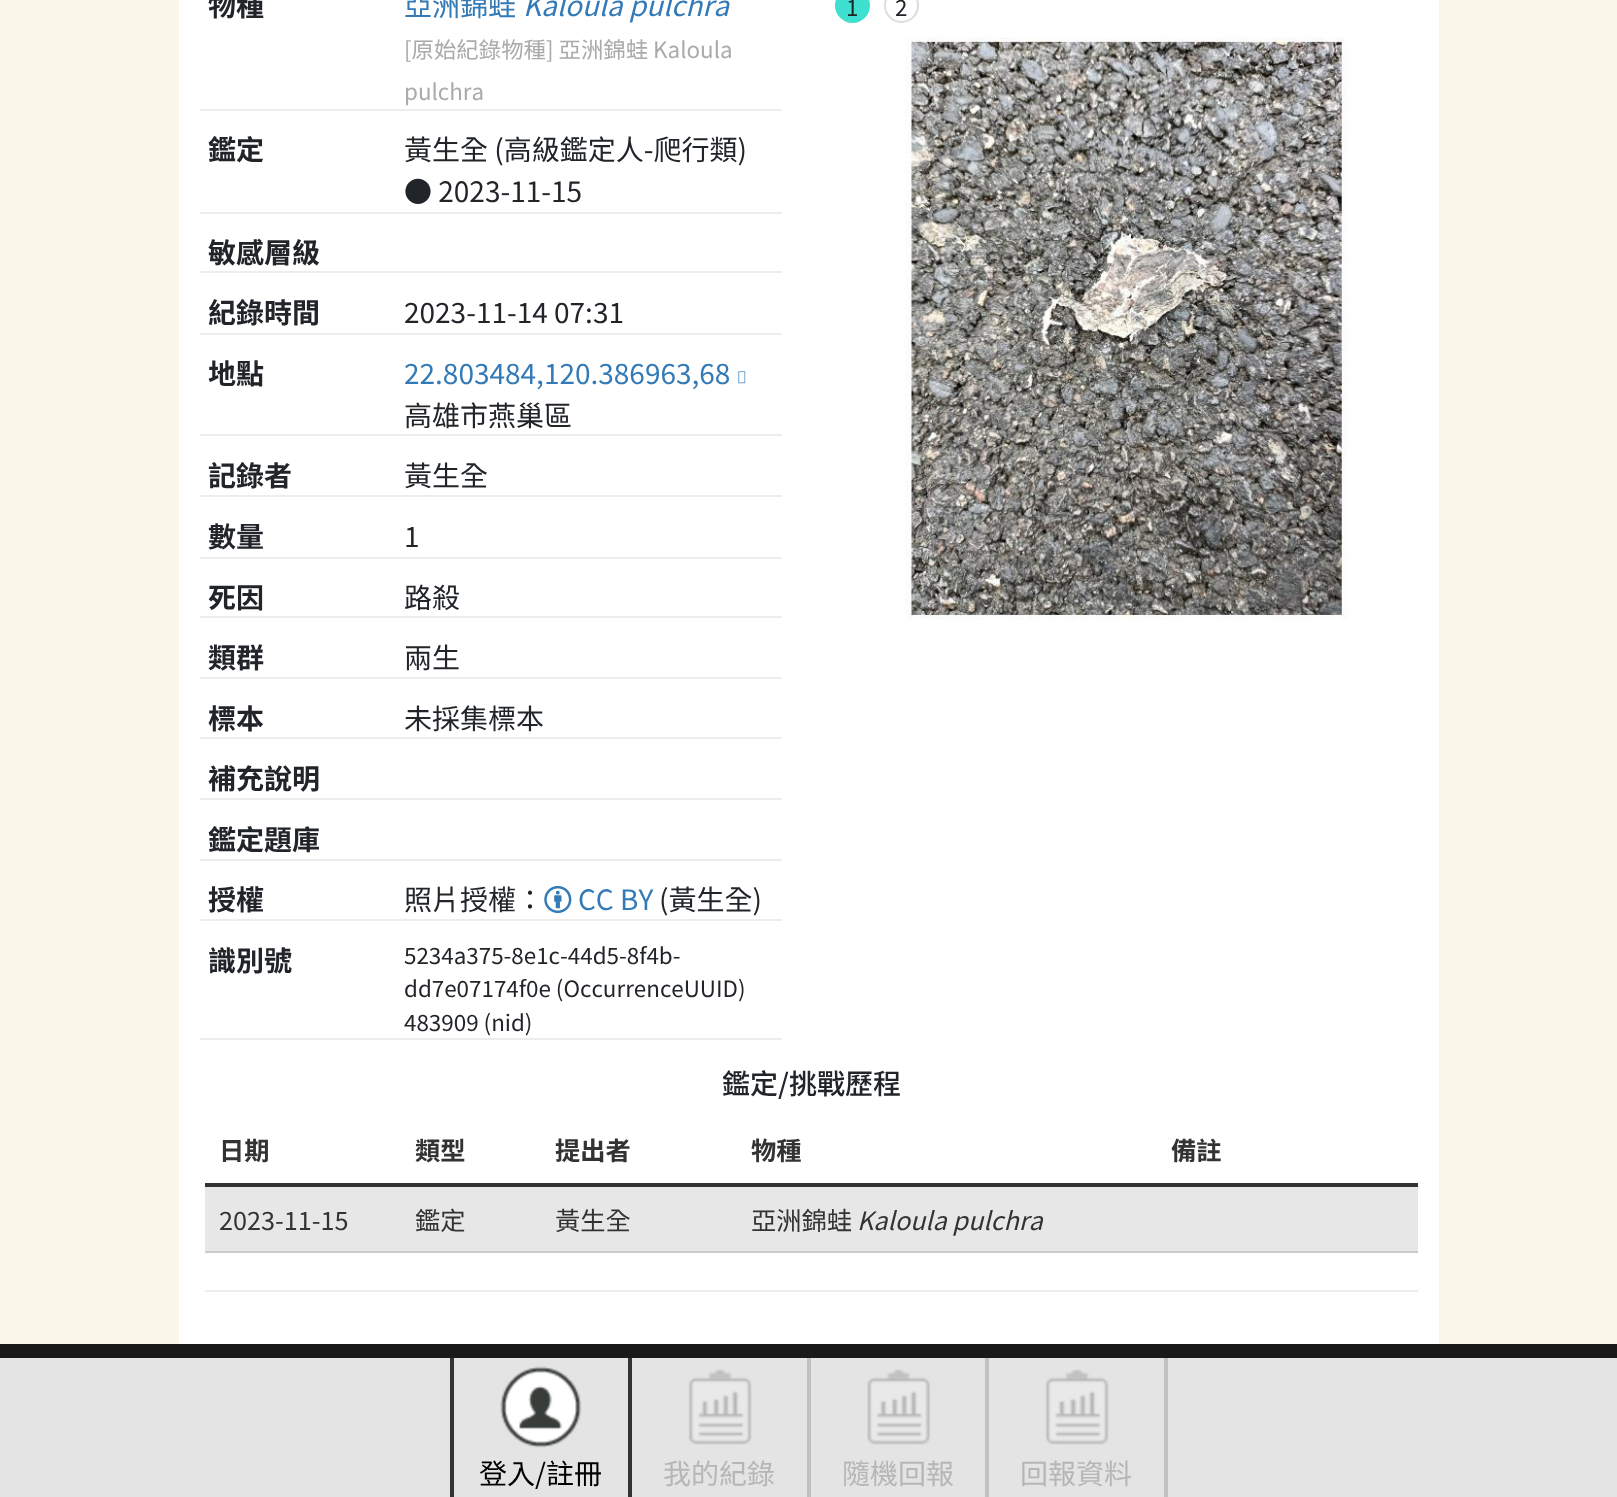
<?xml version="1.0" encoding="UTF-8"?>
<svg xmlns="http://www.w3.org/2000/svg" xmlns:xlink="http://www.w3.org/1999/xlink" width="1617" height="1497">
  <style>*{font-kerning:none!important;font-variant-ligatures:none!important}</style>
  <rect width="100%" height="100%" fill="#1a1919" />
  <rect width="1617" height="1344" fill="#faf7ea" />
  <rect x="179" width="1260" height="1344" fill="#ffffff" />
  <rect x="200" y="109" width="582" height="2" fill="#ededed" />
  <rect x="200" y="212" width="582" height="2" fill="#ededed" />
  <rect x="200" y="271" width="582" height="2" fill="#ededed" />
  <rect x="200" y="333" width="582" height="2" fill="#ededed" />
  <rect x="200" y="434" width="582" height="2" fill="#ededed" />
  <image x="738" y="371" width="8" height="13" xlink:href="image1.png" />
  <rect x="200" y="495" width="582" height="2" fill="#ededed" />
  <rect x="200" y="557" width="582" height="2" fill="#ededed" />
  <rect x="200" y="616" width="582" height="2" fill="#ededed" />
  <rect x="200" y="677" width="582" height="2" fill="#ededed" />
  <rect x="200" y="737" width="582" height="2" fill="#ededed" />
  <rect x="200" y="798" width="582" height="2" fill="#ededed" />
  <rect x="200" y="859" width="582" height="2" fill="#ededed" />
  <rect x="200" y="919" width="582" height="2" fill="#ededed" />
  <image x="544" y="885" width="28" height="29" xlink:href="image2.png" />
  <rect x="200" y="1038" width="582" height="2" fill="#ededed" />
  <circle cx="852.5" cy="5.5" r="17.5" fill="#40e0d0" />
  <circle cx="901.5" cy="5.5" r="16.5" fill="none" stroke="#dddddd" stroke-width="2" />
  <image x="905" y="37" width="443" height="583" xlink:href="image3.png" />
  <rect x="205" y="1290" width="1213" height="2" fill="#ededed" />
  <rect x="205" y="1183" width="1213" height="4" fill="#333333" />
  <rect x="205" y="1187" width="1213" height="64" fill="#e7e7e7" />
  <rect x="205" y="1251" width="1213" height="2" fill="#cccccc" />
  <rect y="1358" width="1617" height="139" fill="#e4e4e4" />
  <rect x="628" y="1358" width="4" height="139" fill="#333333" />
  <rect x="450" y="1358" width="4" height="139" fill="#333333" />
  <image x="500" y="1366" width="82" height="82" xlink:href="image4.png" />
  <rect x="807" y="1358" width="4" height="139" fill="#c1c1c1" />
  <image x="688" y="1369" width="64" height="76" xlink:href="image5.png" />
  <rect x="985" y="1358" width="4" height="139" fill="#c1c1c1" />
  <image x="867" y="1369" width="64" height="76" xlink:href="image6.png" />
  <rect x="1164" y="1358" width="4" height="139" fill="#c1c1c1" />
  <image x="1045" y="1369" width="64" height="76" xlink:href="image5.png" />
  <text x="208" y="16" style="font-family: Noto Sans TC; font-size: 28px; font-weight: bold; fill: #212529">物種</text>
  <text x="404" y="16" style="font-family: Noto Sans TC; font-size: 28px; fill: #337ab7">亞洲錦蛙</text>
  <text x="523" y="16" style="font-family: Noto Sans TC; font-size: 28px; font-style: italic; fill: #337ab7">Kaloula pulchra</text>
  <text x="404" y="58" style="font-family: Noto Sans TC; font-size: 22.4px; fill: #aaaaaa">[原始紀錄物種] 亞洲錦蛙 Kaloula</text>
  <text x="404" y="100" style="font-family: Noto Sans TC; font-size: 22.4px; fill: #aaaaaa">pulchra</text>
  <text x="208" y="160" style="font-family: Noto Sans TC; font-size: 28px; font-weight: bold; fill: #212529">鑑定</text>
  <text x="404" y="160" style="font-family: Noto Sans TC; font-size: 28px; fill: #212529">黃生全 (高級鑑定人-爬行類)</text>
  <text x="404" y="202" style="font-family: Noto Sans TC; font-size: 28px; fill: #212529">● 2023-11-15</text>
  <text x="208" y="263" style="font-family: Noto Sans TC; font-size: 28px; font-weight: bold; fill: #212529">敏感層級</text>
  <text x="208" y="323" style="font-family: Noto Sans TC; font-size: 28px; font-weight: bold; fill: #212529">紀錄時間</text>
  <text x="404" y="323" style="font-family: Noto Sans TC; font-size: 28px; fill: #212529">2023-11-14 07:31</text>
  <text x="208" y="384" style="font-family: Noto Sans TC; font-size: 28px; font-weight: bold; fill: #212529">地點</text>
  <text x="404" y="384" style="font-family: Noto Sans TC; font-size: 28px; fill: #337ab7">22.803484,120.386963,68</text>
  <text x="404" y="426" style="font-family: Noto Sans TC; font-size: 28px; fill: #212529">高雄市燕巢區</text>
  <text x="208" y="486" style="font-family: Noto Sans TC; font-size: 28px; font-weight: bold; fill: #212529">記錄者</text>
  <text x="404" y="486" style="font-family: Noto Sans TC; font-size: 28px; fill: #212529">黃生全</text>
  <text x="208" y="547" style="font-family: Noto Sans TC; font-size: 28px; font-weight: bold; fill: #212529">數量</text>
  <text x="404" y="547" style="font-family: Noto Sans TC; font-size: 28px; fill: #212529">1</text>
  <text x="208" y="608" style="font-family: Noto Sans TC; font-size: 28px; font-weight: bold; fill: #212529">死因</text>
  <text x="404" y="608" style="font-family: Noto Sans TC; font-size: 28px; fill: #212529">路殺</text>
  <text x="208" y="668" style="font-family: Noto Sans TC; font-size: 28px; font-weight: bold; fill: #212529">類群</text>
  <text x="404" y="668" style="font-family: Noto Sans TC; font-size: 28px; fill: #212529">兩生</text>
  <text x="208" y="729" style="font-family: Noto Sans TC; font-size: 28px; font-weight: bold; fill: #212529">標本</text>
  <text x="404" y="729" style="font-family: Noto Sans TC; font-size: 28px; fill: #212529">未採集標本</text>
  <text x="208" y="789" style="font-family: Noto Sans TC; font-size: 28px; font-weight: bold; fill: #212529">補充說明</text>
  <text x="208" y="850" style="font-family: Noto Sans TC; font-size: 28px; font-weight: bold; fill: #212529">鑑定題庫</text>
  <text x="208" y="910" style="font-family: Noto Sans TC; font-size: 28px; font-weight: bold; fill: #212529">授權</text>
  <text x="404" y="910" style="font-family: Noto Sans TC; font-size: 28px; fill: #212529">照片授權：</text>
  <text x="578" y="910" style="font-family: Noto Sans TC; font-size: 28px; fill: #337ab7">CC BY</text>
  <text x="659" y="910" style="font-family: Noto Sans TC; font-size: 28px; fill: #212529">(黃生全)</text>
  <text x="208" y="971" style="font-family: Noto Sans TC; font-size: 28px; font-weight: bold; fill: #212529">識別號</text>
  <text x="404" y="964" style="font-family: Noto Sans TC; font-size: 22.4px; fill: #212529">5234a375-8e1c-44d5-8f4b-</text>
  <text x="404" y="997" style="font-family: Noto Sans TC; font-size: 22.4px; fill: #212529">dd7e07174f0e (OccurrenceUUID)</text>
  <text x="404" y="1031" style="font-family: Noto Sans TC; font-size: 22.4px; fill: #212529">483909 (nid)</text>
  <text x="846" y="16" style="font-family: Noto Sans TC; font-size: 22.4px; fill: #212529">1</text>
  <text x="895" y="16" style="font-family: Noto Sans TC; font-size: 22.4px; fill: #212529">2</text>
  <text x="722" y="1094" style="font-family: Noto Sans TC; font-size: 28px; font-weight: 500; fill: #212529">鑑定/挑戰歷程</text>
  <text x="219" y="1160" style="font-family: Noto Sans TC; font-size: 25.25px; font-weight: bold; fill: #333333">日期</text>
  <text x="415" y="1160" style="font-family: Noto Sans TC; font-size: 25.25px; font-weight: bold; fill: #333333">類型</text>
  <text x="555" y="1160" style="font-family: Noto Sans TC; font-size: 25.25px; font-weight: bold; fill: #333333">提出者</text>
  <text x="751" y="1160" style="font-family: Noto Sans TC; font-size: 25.25px; font-weight: bold; fill: #333333">物種</text>
  <text x="1171" y="1160" style="font-family: Noto Sans TC; font-size: 25.25px; font-weight: bold; fill: #333333">備註</text>
  <text x="219" y="1230" style="font-family: Noto Sans TC; font-size: 25.25px; fill: #333333">2023-11-15</text>
  <text x="415" y="1230" style="font-family: Noto Sans TC; font-size: 25.25px; fill: #333333">鑑定</text>
  <text x="555" y="1230" style="font-family: Noto Sans TC; font-size: 25.25px; fill: #333333">黃生全</text>
  <text x="751" y="1230" style="font-family: Noto Sans TC; font-size: 25.25px; fill: #333333">亞洲錦蛙</text>
  <text x="857" y="1230" style="font-family: Noto Sans TC; font-size: 25.25px; font-style: italic; fill: #333333">Kaloula pulchra</text>
  <text x="479" y="1484" style="font-family: Noto Sans TC; font-size: 28px; fill: #000000">登入/註冊</text>
  <text x="663" y="1484" style="font-family: Noto Sans TC; font-size: 28px; fill: #b6b6b6">我的紀錄</text>
  <text x="842" y="1484" style="font-family: Noto Sans TC; font-size: 28px; fill: #b6b6b6">隨機回報</text>
  <text x="1020" y="1484" style="font-family: Noto Sans TC; font-size: 28px; fill: #b6b6b6">回報資料</text>
</svg>
